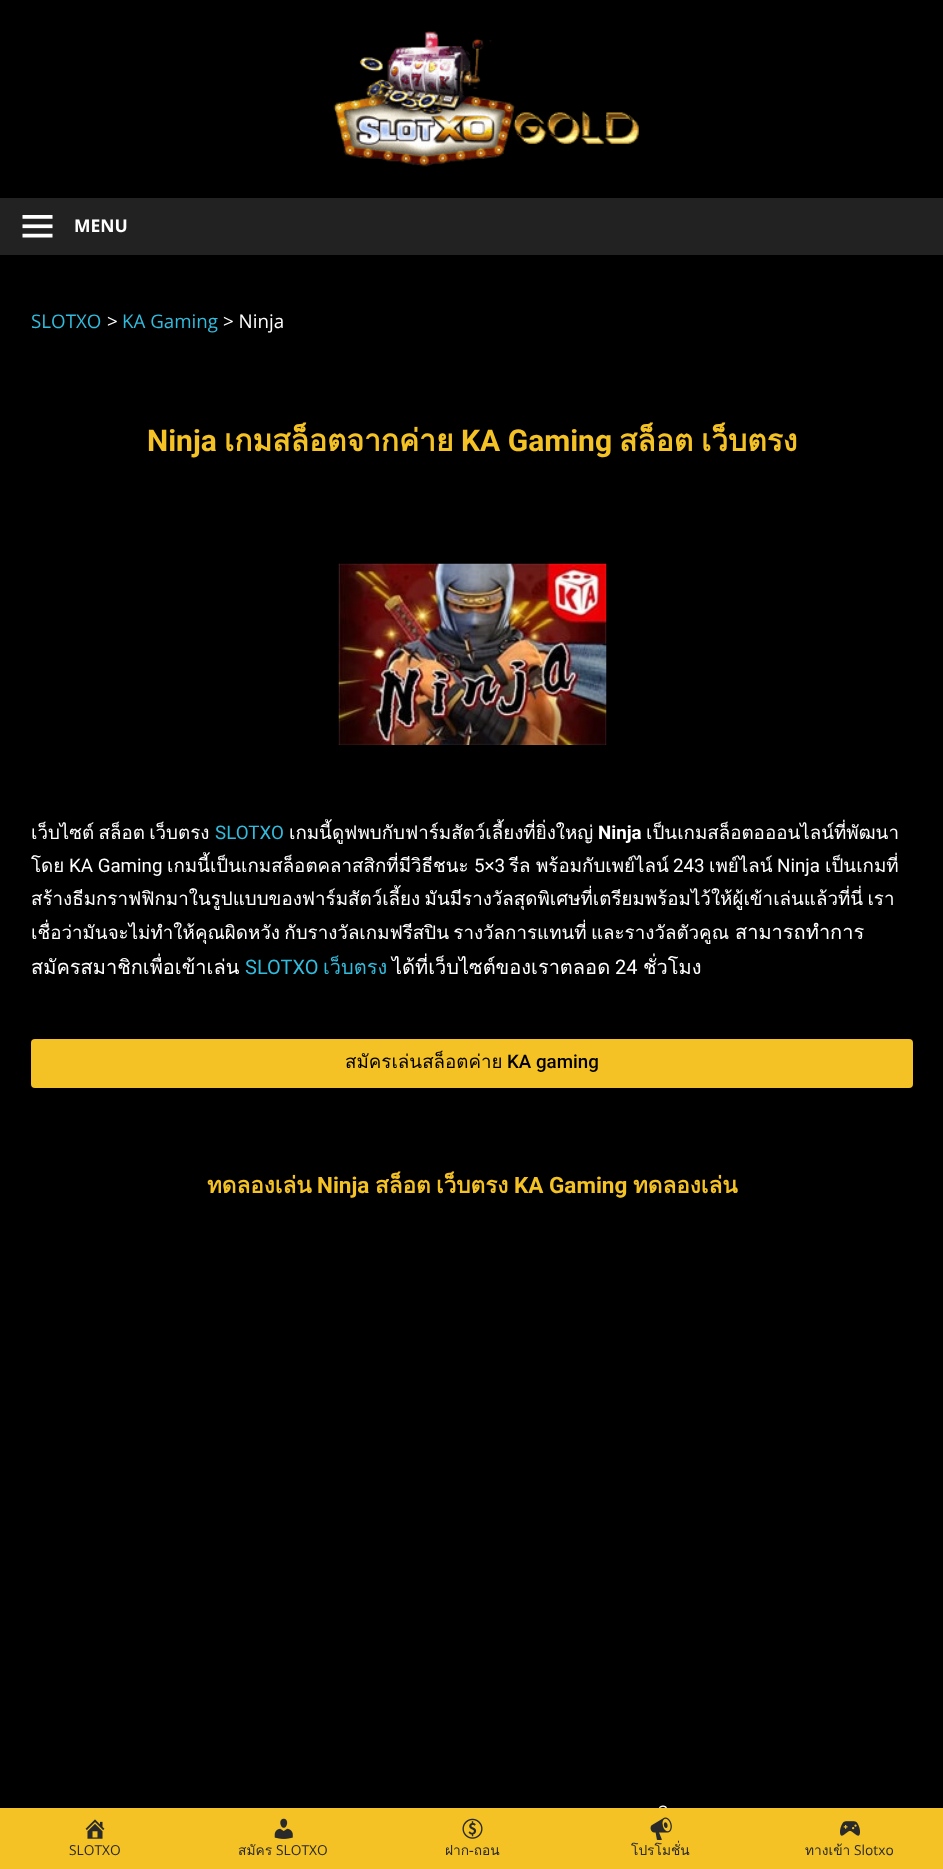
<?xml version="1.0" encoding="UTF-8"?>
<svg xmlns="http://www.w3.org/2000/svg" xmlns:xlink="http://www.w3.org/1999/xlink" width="943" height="1869">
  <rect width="100%" height="100%" fill="#000000" />
  <image x="333" y="31" width="306" height="136" xlink:href="image1.png" />
  <rect y="198" width="943" height="57" fill="#222222" />
  <image x="22" y="215" width="31" height="23" xlink:href="image2.png" />
  <image x="338" y="563" width="269" height="182" xlink:href="image3.png" />
  <rect x="31" y="1039" width="882" height="49" rx="4" fill="#f4c224" />
  <text x="74" y="232" style="font-family: Open Sans; font-size: 17.5px; font-weight: bold; fill: #ffffff">MENU</text>
  <text x="31" y="328" style="font-family: Open Sans; font-size: 18.75px; fill: #33bbdd">SLOTXO</text>
  <text x="107" y="328" style="font-family: Open Sans; font-size: 18.75px; fill: #ffffff">&gt;</text>
  <text x="122" y="328" style="font-family: Open Sans; font-size: 18.75px; fill: #33bbdd">KA Gaming</text>
  <text x="223" y="328" style="font-family: Open Sans; font-size: 18.75px; fill: #ffffff">&gt; Ninja</text>
  <text x="147" y="451" style="font-family: Roboto; font-size: 30px; font-weight: bold; fill: #f4c224">Ninja</text>
  <text x="224" y="451" style="font-family: Loma; font-size: 30px; font-weight: bold; fill: #f4c224">เกมสล็อตจากค่าย</text>
  <text x="461" y="451" style="font-family: Roboto; font-size: 30px; font-weight: bold; fill: #f4c224">KA Gaming</text>
  <text x="619" y="451" style="font-family: Loma; font-size: 30px; font-weight: bold; fill: #f4c224">สล็อต</text>
  <text x="701" y="451" style="font-family: Loma; font-size: 30px; font-weight: bold; fill: #f4c224">เว็บตรง</text>
  <text x="31" y="839" word-spacing="-2" style="font-family: Loma; font-size: 18.75px; fill: #ffffff">เว็บไซต์ สล็อต เว็บตรง</text>
  <text x="215" y="839" style="font-family: Roboto; font-size: 18.75px; fill: #33bbdd">SLOTXO</text>
  <text x="289" y="839" style="font-family: Loma; font-size: 18.75px; fill: #ffffff">เกมนี้ดูฟพบกับฟาร์มสัตว์เลี้ยงที่ยิ่งใหญ่</text>
  <text x="598" y="839" style="font-family: Roboto; font-size: 18.75px; font-weight: bold; fill: #ffffff">Ninja</text>
  <text x="646" y="839" style="font-family: Loma; font-size: 18.75px; fill: #ffffff">เป็นเกมสล็อตอออนไลน์ที่พัฒนา</text>
  <text x="31" y="872" style="font-family: Loma; font-size: 18.75px; fill: #ffffff">โดย</text>
  <text x="69" y="872" style="font-family: Roboto; font-size: 18.75px; fill: #ffffff">KA Gaming</text>
  <text x="167" y="872" style="font-family: Loma; font-size: 18.75px; fill: #ffffff">เกมนี้เป็นเกมสล็อตคลาสสิกที่มีวิธีชนะ</text>
  <text x="474" y="872" style="font-family: Roboto; font-size: 18.75px; fill: #ffffff">5×3</text>
  <text x="509" y="872" style="font-family: Loma; font-size: 18.75px; fill: #ffffff">รีล</text>
  <text x="536" y="872" style="font-family: Loma; font-size: 18.75px; fill: #ffffff">พร้อมกับเพย์ไลน์</text>
  <text x="673" y="872" style="font-family: Roboto; font-size: 18.75px; fill: #ffffff">243</text>
  <text x="709" y="872" style="font-family: Loma; font-size: 18.75px; fill: #ffffff">เพย์ไลน์</text>
  <text x="777" y="872" style="font-family: Roboto; font-size: 18.75px; fill: #ffffff">Ninja</text>
  <text x="825" y="872" style="font-family: Loma; font-size: 18.75px; fill: #ffffff">เป็นเกมที่</text>
  <text x="31" y="905" word-spacing="-2" style="font-family: Loma; font-size: 18.75px; fill: #ffffff">สร้างธีมกราฟฟิกมาในรูปแบบของฟาร์มสัตว์เลี้ยง มันมีรางวัลสุดพิเศษที่เตรียมพร้อมไว้ให้ผู้เข้าเล่นแล้วที่นี่ เรา</text>
  <text x="31" y="939" word-spacing="-2" style="font-family: Loma; font-size: 18.75px; fill: #ffffff">เชื่อว่ามันจะไม่ทำให้คุณผิดหวัง กับรางวัลเกมฟรีสปิน รางวัลการแทนที่ และรางวัลตัวคูณ</text>
  <text x="735" y="939" style="font-family: Loma; font-size: 20px; fill: #ffffff">สามารถทำการ</text>
  <text x="31" y="974" style="font-family: Loma; font-size: 20px; fill: #ffffff">สมัครสมาชิกเพื่อเข้าเล่น</text>
  <text x="245" y="974" style="font-family: Roboto; font-size: 20px; fill: #33bbdd">SLOTXO</text>
  <text x="323" y="974" style="font-family: Loma; font-size: 20px; fill: #33bbdd">เว็บตรง</text>
  <text x="392" y="974" style="font-family: Loma; font-size: 20px; fill: #ffffff">ได้ที่เว็บไซต์ของเราตลอด</text>
  <text x="615" y="974" style="font-family: Roboto; font-size: 20px; fill: #ffffff">24</text>
  <text x="643" y="974" style="font-family: Loma; font-size: 20px; fill: #ffffff">ชั่วโมง</text>
  <text x="345" y="1068" style="font-family: Loma; font-size: 18.75px; fill: #000000">สมัครเล่นสล็อตค่าย</text>
  <text x="507" y="1068" style="font-family: Roboto; font-size: 18.75px; font-weight: 500; fill: #000000">KA gaming</text>
  <text x="207" y="1193" style="font-family: Loma; font-size: 22.5px; font-weight: bold; fill: #f4c224">ทดลองเล่น</text>
  <text x="317" y="1193" style="font-family: Roboto; font-size: 22.5px; font-weight: bold; fill: #f4c224">Ninja</text>
  <text x="375" y="1193" style="font-family: Loma; font-size: 22.5px; font-weight: bold; fill: #f4c224">สล็อต</text>
  <text x="436" y="1193" style="font-family: Loma; font-size: 22.5px; font-weight: bold; fill: #f4c224">เว็บตรง</text>
  <text x="514" y="1193" style="font-family: Roboto; font-size: 22.5px; font-weight: bold; fill: #f4c224">KA Gaming</text>
  <text x="633" y="1193" style="font-family: Loma; font-size: 22.5px; font-weight: bold; fill: #f4c224">ทดลองเล่น</text>
  <text x="658" y="1816" word-spacing="-1" style="font-family: Loma; font-size: 18.75px; fill: #ffffff">ว</text>
  <rect y="1808" width="943" height="61" fill="#f4c224" />
  <image x="85" y="1819" width="20" height="20" xlink:href="image4.png" />
  <text x="69" y="1855" style="font-family: Open Sans; font-size: 13.75px; fill: #2a2a2a">SLOTXO</text>
  <image x="274" y="1818" width="19" height="21" xlink:href="image5.png" />
  <text x="238" y="1855" style="font-family: Loma; font-size: 13.75px; fill: #2a2a2a">สมัคร</text>
  <text x="276" y="1855" style="font-family: Open Sans; font-size: 13.75px; fill: #2a2a2a">SLOTXO</text>
  <image x="462" y="1818" width="21" height="21" xlink:href="image6.png" />
  <text x="445" y="1855" style="font-family: Loma; font-size: 13.75px; fill: #2a2a2a">ฝาก-ถอน</text>
  <image x="650" y="1817" width="22" height="23" xlink:href="image7.png" />
  <text x="631" y="1855" style="font-family: Loma; font-size: 13.75px; fill: #2a2a2a">โปรโมชั่น</text>
  <image x="840" y="1821" width="20" height="15" xlink:href="image8.png" />
  <text x="805" y="1855" style="font-family: Loma; font-size: 13.75px; fill: #2a2a2a">ทางเข้า</text>
  <text x="854" y="1855" style="font-family: Open Sans; font-size: 13.75px; fill: #2a2a2a">Slotxo</text>
</svg>
